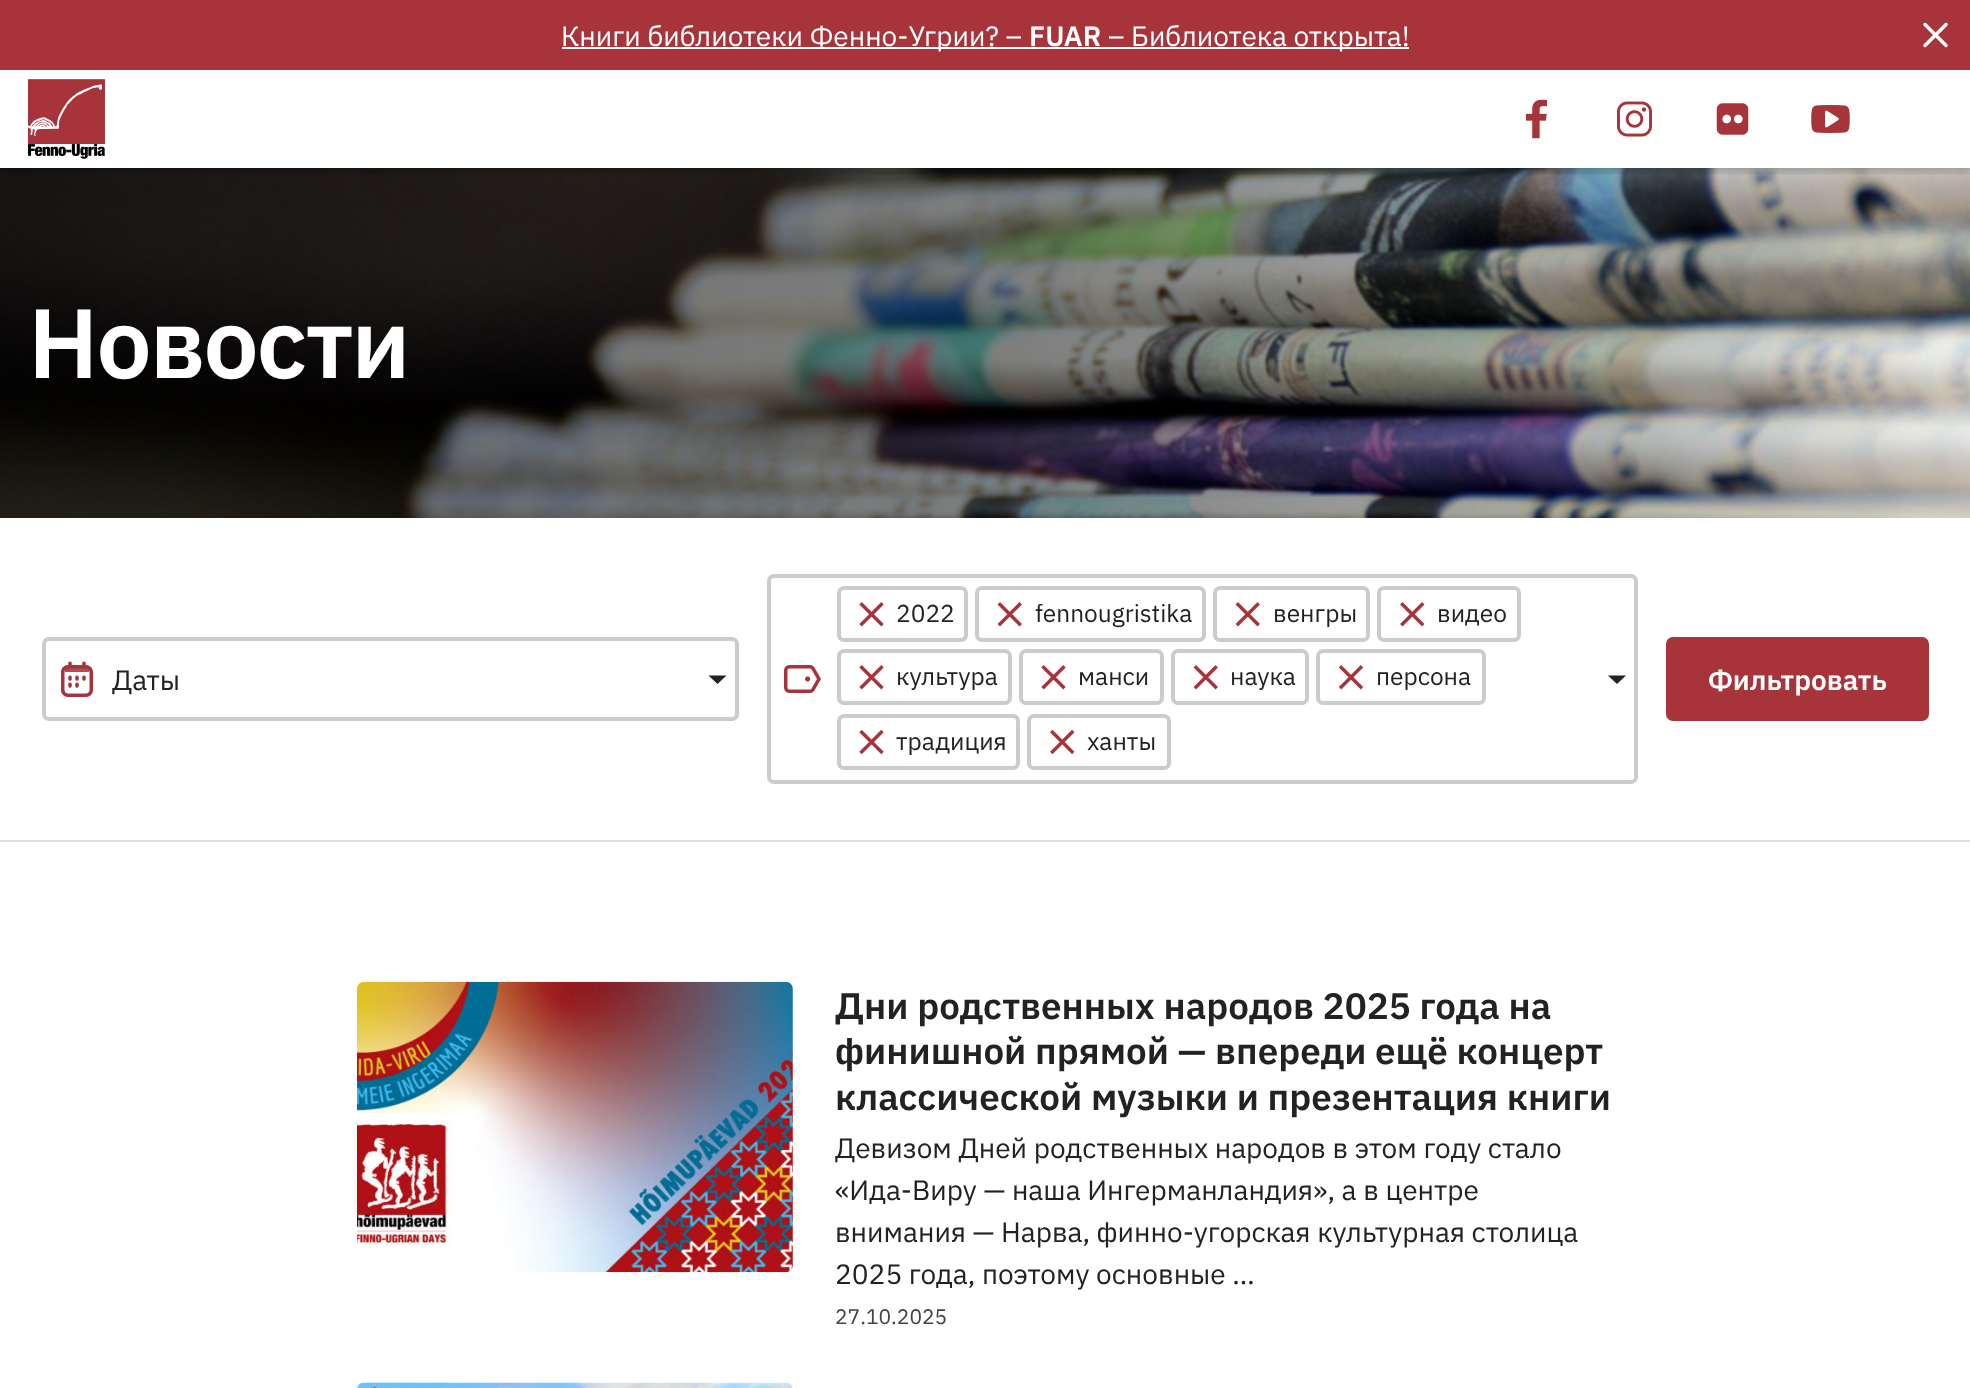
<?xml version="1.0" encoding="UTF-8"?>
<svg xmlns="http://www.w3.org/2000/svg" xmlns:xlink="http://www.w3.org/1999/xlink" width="1970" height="1388">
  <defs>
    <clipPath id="clip1"><rect x="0" y="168" width="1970" height="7" /></clipPath>
  </defs>
  <rect width="100%" height="100%" fill="#ffffff" />
  <rect width="1970" height="70" fill="#a7343a" />
  <rect x="562" y="47" width="847" height="2" fill="#ffffff" />
  <image x="1923" y="22" width="25" height="26" xlink:href="image1.png" />
  <image x="0" y="168" width="1970" height="350" xlink:href="image7.png" />
  <g clip-path="url(#clip1)">
    <rect y="74" width="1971" height="98" fill="#000000" fill-opacity="0.1" filter="blur(3.5px)" />
    <rect y="74" width="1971" height="98" fill="#000000" fill-opacity="0.1" filter="blur(3.5px)" />
  </g>
  <image x="28" y="79" width="77" height="80" xlink:href="image2.png" />
  <image x="1526" y="99" width="21" height="40" xlink:href="image3.png" />
  <image x="1617" y="101" width="35" height="36" xlink:href="image4.png" />
  <image x="1716" y="103" width="33" height="32" xlink:href="image5.png" />
  <image x="1811" y="105" width="39" height="28" xlink:href="image6.png" />
  <rect y="840" width="1970" height="2" fill="#dedede" />
  <rect x="44" y="639" width="693" height="80" rx="5" fill="none" stroke="#cccccc" stroke-width="4" />
  <image x="61" y="661" width="32" height="36" xlink:href="image8.png" />
  <path d="M 708.5 675.5 l 9 8.5 l 9 -8.5 z" fill="#222222" />
  <rect x="769" y="576" width="867" height="206" rx="5" fill="none" stroke="#cccccc" stroke-width="4" />
  <image x="784" y="665" width="37" height="28" xlink:href="image9.png" />
  <rect x="839" y="588" width="127" height="52" rx="5" fill="none" stroke="#cccccc" stroke-width="4" />
  <image x="859" y="602" width="25" height="25" xlink:href="image10.png" />
  <rect x="977" y="588" width="227" height="52" rx="5" fill="none" stroke="#cccccc" stroke-width="4" />
  <image x="997" y="602" width="25" height="25" xlink:href="image11.png" />
  <rect x="1215" y="588" width="153" height="52" rx="5" fill="none" stroke="#cccccc" stroke-width="4" />
  <image x="1235" y="602" width="25" height="25" xlink:href="image11.png" />
  <rect x="1379" y="588" width="140" height="52" rx="5" fill="none" stroke="#cccccc" stroke-width="4" />
  <image x="1400" y="602" width="25" height="25" xlink:href="image12.png" />
  <rect x="839" y="651" width="171" height="52" rx="5" fill="none" stroke="#cccccc" stroke-width="4" />
  <image x="859" y="665" width="25" height="25" xlink:href="image10.png" />
  <rect x="1021" y="651" width="141" height="52" rx="5" fill="none" stroke="#cccccc" stroke-width="4" />
  <image x="1041" y="665" width="25" height="25" xlink:href="image10.png" />
  <rect x="1173" y="651" width="134" height="52" rx="5" fill="none" stroke="#cccccc" stroke-width="4" />
  <image x="1193" y="665" width="25" height="25" xlink:href="image11.png" />
  <rect x="1318" y="651" width="166" height="52" rx="5" fill="none" stroke="#cccccc" stroke-width="4" />
  <image x="1338" y="665" width="26" height="25" xlink:href="image13.png" />
  <rect x="839" y="716" width="179" height="52" rx="5" fill="none" stroke="#cccccc" stroke-width="4" />
  <image x="859" y="729" width="25" height="26" xlink:href="image14.png" />
  <rect x="1029" y="716" width="140" height="52" rx="5" fill="none" stroke="#cccccc" stroke-width="4" />
  <image x="1050" y="729" width="25" height="26" xlink:href="image15.png" />
  <path d="M 1608 675.5 l 9 8.5 l 9 -8.5 z" fill="#222222" />
  <rect x="1668" y="639" width="259" height="80" rx="5" fill="#a7343a" stroke="#a7343a" stroke-width="4" />
  <rect x="357" y="982" width="436" height="290" rx="7" fill="#f8f8f8" />
  <image x="357" y="981" width="436" height="292" xlink:href="image16.png" />
  <image x="357" y="1382" width="436" height="6" xlink:href="image17.png" />
  <text x="561" y="46" style="font-family: IBM Plex Sans; font-size: 28px; fill: #ffffff">Книги библиотеки Фенно-Угрии? –</text>
  <text x="1029" y="46" style="font-family: IBM Plex Sans; font-size: 28px; font-weight: 600; fill: #ffffff">FUAR</text>
  <text x="1108" y="46" style="font-family: IBM Plex Sans; font-size: 28px; fill: #ffffff">– Библиотека открыта!</text>
  <text x="28" y="378" style="font-family: IBM Plex Sans; font-size: 98px; font-weight: 600; letter-spacing: -2px; fill: #ffffff">Новости</text>
  <text x="112" y="690" style="font-family: IBM Plex Sans; font-size: 28px; fill: #222222">Даты</text>
  <text x="896" y="622" style="font-family: IBM Plex Sans; font-size: 24.5px; fill: #222222">2022</text>
  <text x="1035" y="622" style="font-family: IBM Plex Sans; font-size: 24.5px; fill: #222222">fennougristika</text>
  <text x="1273" y="622" style="font-family: IBM Plex Sans; font-size: 24.5px; fill: #222222">венгры</text>
  <text x="1437" y="622" style="font-family: IBM Plex Sans; font-size: 24.5px; fill: #222222">видео</text>
  <text x="896" y="685" style="font-family: IBM Plex Sans; font-size: 24.5px; fill: #222222">культура</text>
  <text x="1078" y="685" style="font-family: IBM Plex Sans; font-size: 24.5px; fill: #222222">манси</text>
  <text x="1230" y="685" style="font-family: IBM Plex Sans; font-size: 24.5px; fill: #222222">наука</text>
  <text x="1376" y="685" style="font-family: IBM Plex Sans; font-size: 24.5px; fill: #222222">персона</text>
  <text x="896" y="750" style="font-family: IBM Plex Sans; font-size: 24.5px; fill: #222222">традиция</text>
  <text x="1087" y="750" style="font-family: IBM Plex Sans; font-size: 24.5px; fill: #222222">ханты</text>
  <text x="1708" y="690" style="font-family: IBM Plex Sans; font-size: 28px; font-weight: 600; fill: #ffffff">Фильтровать</text>
  <text x="835" y="1019" style="font-family: IBM Plex Sans; font-size: 36.75px; font-weight: 600; fill: #222222">Дни родственных народов 2025 года на</text>
  <text x="835" y="1064" style="font-family: IBM Plex Sans; font-size: 36.75px; font-weight: 600; fill: #222222">финишной прямой — впереди ещё концерт</text>
  <text x="835" y="1110" style="font-family: IBM Plex Sans; font-size: 36.75px; font-weight: 600; fill: #222222">классической музыки и презентация книги</text>
  <text x="835" y="1158" style="font-family: IBM Plex Sans; font-size: 28px; fill: #222222">Девизом Дней родственных народов в этом году стало</text>
  <text x="835" y="1200" style="font-family: IBM Plex Sans; font-size: 28px; fill: #222222">«Ида-Виру — наша Ингерманландия», а в центре</text>
  <text x="835" y="1242" style="font-family: IBM Plex Sans; font-size: 28px; fill: #222222">внимания — Нарва, финно-угорская культурная столица</text>
  <text x="835" y="1284" style="font-family: IBM Plex Sans; font-size: 28px; fill: #222222">2025 года, поэтому основные …</text>
  <text x="835" y="1324" style="font-family: IBM Plex Sans; font-size: 21px; fill: #444444">27.10.2025</text>
</svg>
